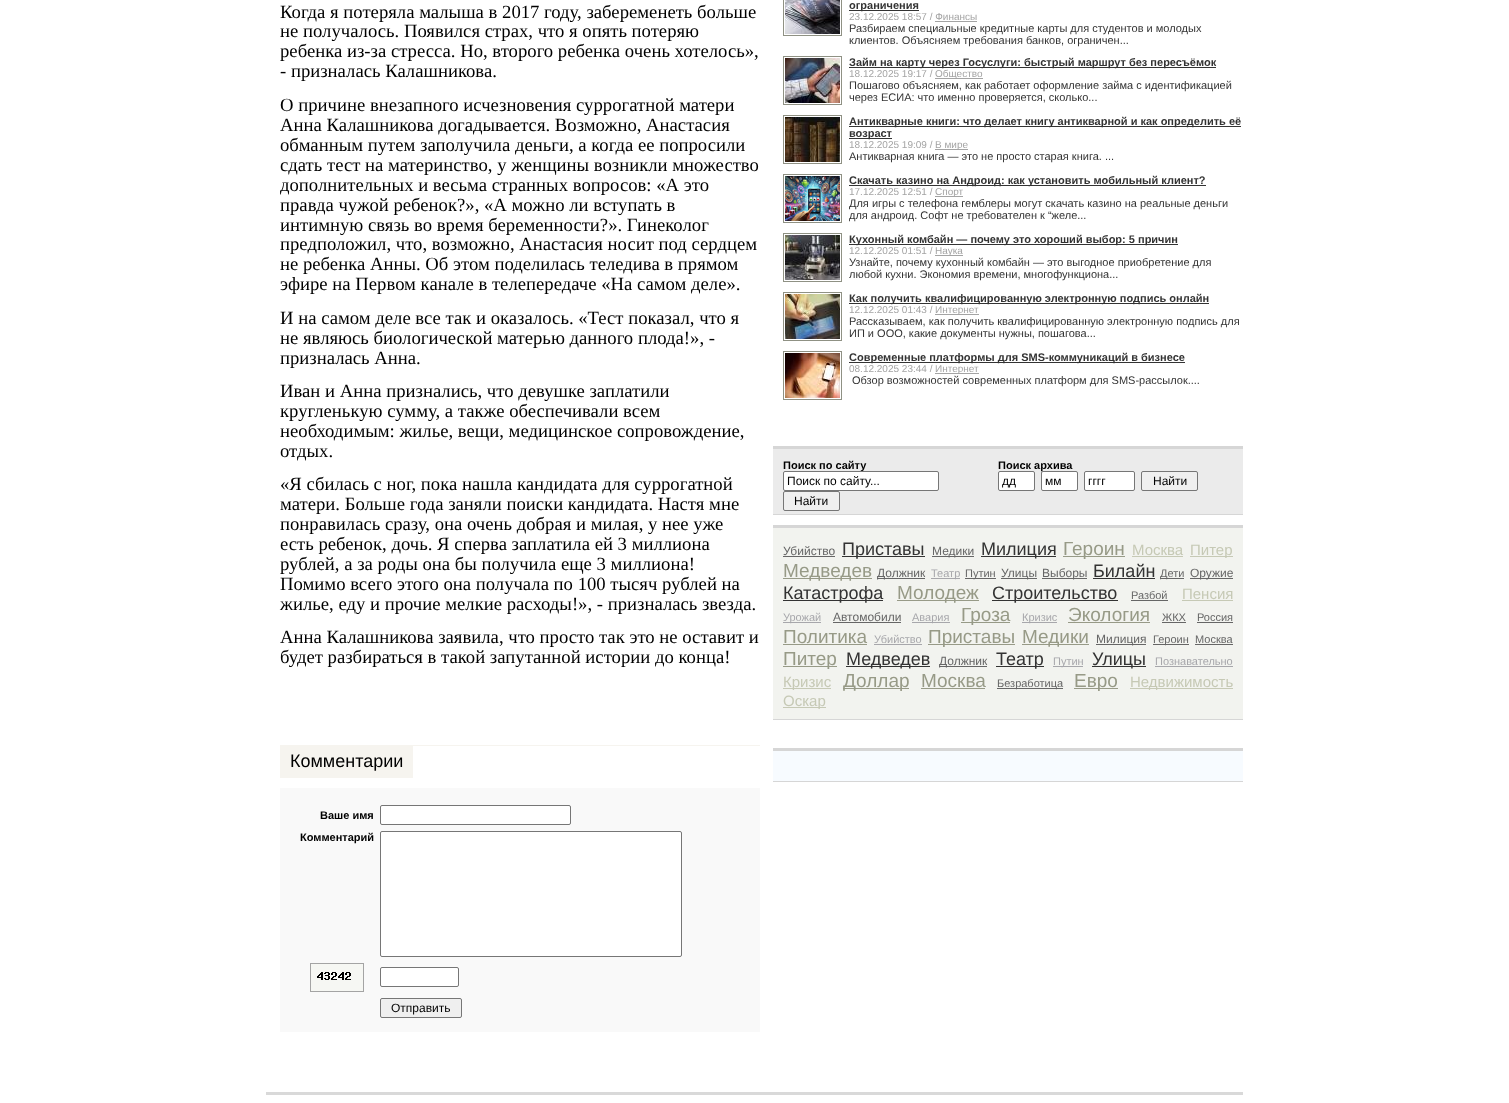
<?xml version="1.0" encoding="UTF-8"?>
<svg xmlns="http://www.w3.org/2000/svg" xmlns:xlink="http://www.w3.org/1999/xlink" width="1509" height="1103">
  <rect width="100%" height="100%" fill="#ffffff" />
  <rect x="280" y="745" width="480" height="1" fill="#f6f4ef" />
  <rect x="280" y="746" width="133" height="32" fill="#f6f4ef" />
  <rect x="280" y="788" width="480" height="244" fill="#f9f9f9" />
  <rect x="380.5" y="805.5" width="190" height="19" rx="1.5" fill="#ffffff" stroke="#767676" />
  <rect x="380.5" y="831.5" width="301" height="125" rx="1.5" fill="#ffffff" stroke="#767676" />
  <rect x="310.5" y="963.5" width="53" height="28" fill="#f6f7f3" stroke="#a4a4a4" />
  <image x="317" y="972" width="34" height="8" xlink:href="image1.png" />
  <rect x="380.5" y="967.5" width="78" height="19" rx="1.5" fill="#ffffff" stroke="#767676" />
  <rect x="380.5" y="998.5" width="81" height="19" rx="1.5" fill="#efefef" stroke="#767676" />
  <rect x="783.5" y="-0.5" width="58" height="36" fill="none" stroke="#8f9184" />
  <image x="785" y="0" width="55" height="34" xlink:href="image2.png" />
  <rect x="849" y="10" width="70" height="1" fill="#333333" />
  <rect x="935" y="21" width="42" height="1" fill="#a4a4a4" />
  <rect x="783.5" y="56.5" width="58" height="48" fill="none" stroke="#8f9184" />
  <image x="785" y="58" width="55" height="45" xlink:href="image3.png" />
  <rect x="849" y="67" width="367" height="1" fill="#333333" />
  <rect x="935" y="78" width="48" height="1" fill="#a4a4a4" />
  <rect x="783.5" y="115.5" width="58" height="48" fill="none" stroke="#8f9184" />
  <image x="785" y="117" width="55" height="45" xlink:href="image4.png" />
  <rect x="849" y="126" width="392" height="1" fill="#333333" />
  <rect x="849" y="138" width="43" height="1" fill="#333333" />
  <rect x="935" y="149" width="33" height="1" fill="#a4a4a4" />
  <rect x="783.5" y="174.5" width="58" height="48" fill="none" stroke="#8f9184" />
  <image x="785" y="176" width="55" height="45" xlink:href="image5.png" />
  <rect x="849" y="185" width="357" height="1" fill="#333333" />
  <rect x="935" y="196" width="28" height="1" fill="#a4a4a4" />
  <rect x="783.5" y="233.5" width="58" height="48" fill="none" stroke="#8f9184" />
  <image x="785" y="235" width="55" height="45" xlink:href="image6.png" />
  <rect x="849" y="244" width="329" height="1" fill="#333333" />
  <rect x="935" y="255" width="28" height="1" fill="#a4a4a4" />
  <rect x="783.5" y="292.5" width="58" height="48" fill="none" stroke="#8f9184" />
  <image x="785" y="294" width="55" height="45" xlink:href="image7.png" />
  <rect x="849" y="303" width="360" height="1" fill="#333333" />
  <rect x="935" y="314" width="44" height="1" fill="#a4a4a4" />
  <rect x="783.5" y="351.5" width="58" height="48" fill="none" stroke="#8f9184" />
  <image x="785" y="353" width="55" height="45" xlink:href="image8.png" />
  <rect x="849" y="362" width="336" height="1" fill="#333333" />
  <rect x="935" y="373" width="44" height="1" fill="#a4a4a4" />
  <rect x="773" y="449" width="470" height="65" fill="#ebebeb" />
  <rect x="773" y="446" width="470" height="3" fill="#d6d6d6" />
  <rect x="773" y="514" width="470" height="1" fill="#d6d6d6" />
  <rect x="783.5" y="491.5" width="56" height="19" rx="1.5" fill="#efefef" stroke="#767676" />
  <rect x="1084.5" y="471.5" width="50" height="19" rx="1.5" fill="#ffffff" stroke="#767676" />
  <rect x="1141.5" y="471.5" width="56" height="19" rx="1.5" fill="#efefef" stroke="#767676" />
  <rect x="773" y="528" width="470" height="191" fill="#f2f3ef" />
  <rect x="773" y="525" width="470" height="3" fill="#d6d6d6" />
  <rect x="773" y="719" width="470" height="1" fill="#d6d6d6" />
  <rect x="783" y="556" width="52" height="1" fill="#666666" />
  <rect x="842" y="556" width="83" height="1" fill="#333333" />
  <rect x="932" y="556" width="42" height="1" fill="#666666" />
  <rect x="981" y="556" width="75" height="1" fill="#333333" />
  <rect x="1063" y="556" width="62" height="1" fill="#979a87" />
  <rect x="1132" y="556" width="51" height="1" fill="#c6c9b5" />
  <rect x="1190" y="556" width="43" height="1" fill="#c6c9b5" />
  <rect x="783" y="578" width="89" height="1" fill="#979a87" />
  <rect x="877" y="578" width="48" height="1" fill="#666666" />
  <rect x="931" y="578" width="29" height="1" fill="#a7a7ab" />
  <rect x="965" y="578" width="31" height="1" fill="#666666" />
  <rect x="1001" y="578" width="36" height="1" fill="#666666" />
  <rect x="1042" y="578" width="45" height="1" fill="#666666" />
  <rect x="1093" y="578" width="62" height="1" fill="#333333" />
  <rect x="1160" y="578" width="24" height="1" fill="#666666" />
  <rect x="1190" y="578" width="43" height="1" fill="#666666" />
  <rect x="783" y="600" width="100" height="1" fill="#333333" />
  <rect x="897" y="600" width="82" height="1" fill="#979a87" />
  <rect x="992" y="600" width="126" height="1" fill="#333333" />
  <rect x="1131" y="600" width="37" height="1" fill="#666666" />
  <rect x="1182" y="600" width="51" height="1" fill="#c6c9b5" />
  <rect x="783" y="622" width="38" height="1" fill="#a7a7ab" />
  <rect x="833" y="622" width="68" height="1" fill="#666666" />
  <rect x="912" y="622" width="38" height="1" fill="#a7a7ab" />
  <rect x="961" y="622" width="49" height="1" fill="#979a87" />
  <rect x="1022" y="622" width="35" height="1" fill="#a7a7ab" />
  <rect x="1068" y="622" width="82" height="1" fill="#979a87" />
  <rect x="1162" y="622" width="24" height="1" fill="#666666" />
  <rect x="1197" y="622" width="36" height="1" fill="#666666" />
  <rect x="783" y="644" width="84" height="1" fill="#979a87" />
  <rect x="874" y="644" width="48" height="1" fill="#a7a7ab" />
  <rect x="928" y="644" width="87" height="1" fill="#979a87" />
  <rect x="1022" y="644" width="67" height="1" fill="#979a87" />
  <rect x="1096" y="644" width="50" height="1" fill="#666666" />
  <rect x="1153" y="644" width="36" height="1" fill="#666666" />
  <rect x="1195" y="644" width="38" height="1" fill="#666666" />
  <rect x="783" y="666" width="54" height="1" fill="#979a87" />
  <rect x="846" y="666" width="84" height="1" fill="#333333" />
  <rect x="939" y="666" width="48" height="1" fill="#666666" />
  <rect x="996" y="666" width="48" height="1" fill="#333333" />
  <rect x="1053" y="666" width="30" height="1" fill="#a7a7ab" />
  <rect x="1092" y="666" width="54" height="1" fill="#333333" />
  <rect x="1155" y="666" width="78" height="1" fill="#a7a7ab" />
  <rect x="783" y="688" width="48" height="1" fill="#c6c9b5" />
  <rect x="843" y="688" width="66" height="1" fill="#979a87" />
  <rect x="921" y="688" width="64" height="1" fill="#979a87" />
  <rect x="997" y="688" width="66" height="1" fill="#666666" />
  <rect x="1074" y="688" width="44" height="1" fill="#979a87" />
  <rect x="1130" y="688" width="103" height="1" fill="#c6c9b5" />
  <rect x="783" y="707" width="43" height="1" fill="#c6c9b5" />
  <rect x="773" y="751" width="470" height="30" fill="#f7fbff" />
  <rect x="773" y="748" width="470" height="3" fill="#d6d6d6" />
  <rect x="773" y="781" width="470" height="1" fill="#d6d6d6" />
  <rect x="266" y="1092" width="977" height="3" fill="#d9d9d9" />
  <text x="280" y="18" style="font-family: Liberation Serif; font-size: 18.7px; fill: #000000">Когда я потеряла малыша в 2017 году, забеременеть больше</text>
  <text x="280" y="37" style="font-family: Liberation Serif; font-size: 18.7px; fill: #000000">не получалось. Появился страх, что я опять потеряю</text>
  <text x="280" y="57" style="font-family: Liberation Serif; font-size: 18.7px; fill: #000000">ребенка из-за стресса. Но, второго ребенка очень хотелось»,</text>
  <text x="280" y="77" style="font-family: Liberation Serif; font-size: 18.7px; fill: #000000">- призналась Калашникова.</text>
  <text x="280" y="111" style="font-family: Liberation Serif; font-size: 18.7px; fill: #000000">О причине внезапного исчезновения суррогатной матери</text>
  <text x="280" y="131" style="font-family: Liberation Serif; font-size: 18.7px; fill: #000000">Анна Калашникова догадывается. Возможно, Анастасия</text>
  <text x="280" y="151" style="font-family: Liberation Serif; font-size: 18.7px; fill: #000000">обманным путем заполучила деньги, а когда ее попросили</text>
  <text x="280" y="171" style="font-family: Liberation Serif; font-size: 18.7px; fill: #000000">сдать тест на материнство, у женщины возникли множество</text>
  <text x="280" y="191" style="font-family: Liberation Serif; font-size: 18.7px; fill: #000000">дополнительных и весьма странных вопросов: «А это</text>
  <text x="280" y="211" style="font-family: Liberation Serif; font-size: 18.7px; fill: #000000">правда чужой ребенок?», «А можно ли вступать в</text>
  <text x="280" y="231" style="font-family: Liberation Serif; font-size: 18.7px; fill: #000000">интимную связь во время беременности?». Гинеколог</text>
  <text x="280" y="250" style="font-family: Liberation Serif; font-size: 18.7px; fill: #000000">предположил, что, возможно, Анастасия носит под сердцем</text>
  <text x="280" y="270" style="font-family: Liberation Serif; font-size: 18.7px; fill: #000000">не ребенка Анны. Об этом поделилась теледива в прямом</text>
  <text x="280" y="290" style="font-family: Liberation Serif; font-size: 18.7px; fill: #000000">эфире на Первом канале в телепередаче «На самом деле».</text>
  <text x="280" y="324" style="font-family: Liberation Serif; font-size: 18.7px; fill: #000000">И на самом деле все так и оказалось. «Тест показал, что я</text>
  <text x="280" y="344" style="font-family: Liberation Serif; font-size: 18.7px; fill: #000000">не являюсь биологической матерью данного плода!», -</text>
  <text x="280" y="364" style="font-family: Liberation Serif; font-size: 18.7px; fill: #000000">призналась Анна.</text>
  <text x="280" y="397" style="font-family: Liberation Serif; font-size: 18.7px; fill: #000000">Иван и Анна признались, что девушке заплатили</text>
  <text x="280" y="417" style="font-family: Liberation Serif; font-size: 18.7px; fill: #000000">кругленькую сумму, а также обеспечивали всем</text>
  <text x="280" y="437" style="font-family: Liberation Serif; font-size: 18.7px; fill: #000000">необходимым: жилье, вещи, медицинское сопровождение,</text>
  <text x="280" y="457" style="font-family: Liberation Serif; font-size: 18.7px; fill: #000000">отдых.</text>
  <text x="280" y="490" style="font-family: Liberation Serif; font-size: 18.7px; fill: #000000">«Я сбилась с ног, пока нашла кандидата для суррогатной</text>
  <text x="280" y="510" style="font-family: Liberation Serif; font-size: 18.7px; fill: #000000">матери. Больше года заняли поиски кандидата. Настя мне</text>
  <text x="280" y="530" style="font-family: Liberation Serif; font-size: 18.7px; fill: #000000">понравилась сразу, она очень добрая и милая, у нее уже</text>
  <text x="280" y="550" style="font-family: Liberation Serif; font-size: 18.7px; fill: #000000">есть ребенок, дочь. Я сперва заплатила ей 3 миллиона</text>
  <text x="280" y="570" style="font-family: Liberation Serif; font-size: 18.7px; fill: #000000">рублей, а за роды она бы получила еще 3 миллиона!</text>
  <text x="280" y="590" style="font-family: Liberation Serif; font-size: 18.7px; fill: #000000">Помимо всего этого она получала по 100 тысяч рублей на</text>
  <text x="280" y="610" style="font-family: Liberation Serif; font-size: 18.7px; fill: #000000">жилье, еду и прочие мелкие расходы!», - призналась звезда.</text>
  <text x="280" y="643" style="font-family: Liberation Serif; font-size: 18.7px; fill: #000000">Анна Калашникова заявила, что просто так это не оставит и</text>
  <text x="280" y="663" style="font-family: Liberation Serif; font-size: 18.7px; fill: #000000">будет разбираться в такой запутанной истории до конца!</text>
  <text x="290" y="767" style="font-family: Liberation Sans; font-size: 18px; fill: #000000">Комментарии</text>
  <text x="320" y="819" style="font-family: Liberation Sans; font-size: 11px; font-weight: bold; fill: #000000">Ваше имя</text>
  <text x="300" y="841" style="font-family: Liberation Sans; font-size: 11px; font-weight: bold; fill: #000000">Комментарий</text>
  <text x="391" y="1012" style="font-family: Liberation Sans; font-size: 12px; fill: #000000">Отправить</text>
  <text x="849" y="9" style="font-family: Liberation Sans; font-size: 11px; font-weight: bold; fill: #333333">ограничения</text>
  <text x="849" y="20" style="font-family: Liberation Sans; font-size: 10px; fill: #a4a4a4">23.12.2025 18:57 / Финансы</text>
  <text x="849" y="32" style="font-family: Liberation Sans; font-size: 11px; fill: #333333">Разбираем специальные кредитные карты для студентов и молодых</text>
  <text x="849" y="44" style="font-family: Liberation Sans; font-size: 11px; fill: #333333">клиентов. Объясняем требования банков, ограничен...</text>
  <text x="849" y="66" style="font-family: Liberation Sans; font-size: 11px; font-weight: bold; fill: #333333">Займ на карту через Госуслуги: быстрый маршрут без пересъёмок</text>
  <text x="849" y="77" style="font-family: Liberation Sans; font-size: 10px; fill: #a4a4a4">18.12.2025 19:17 /</text>
  <text x="935" y="77" style="font-family: Liberation Sans; font-size: 10px; fill: #a4a4a4">Общество</text>
  <text x="849" y="89" style="font-family: Liberation Sans; font-size: 11px; fill: #333333">Пошагово объясняем, как работает оформление займа с идентификацией</text>
  <text x="849" y="101" style="font-family: Liberation Sans; font-size: 11px; fill: #333333">через ЕСИА: что именно проверяется, сколько...</text>
  <text x="849" y="125" style="font-family: Liberation Sans; font-size: 11px; font-weight: bold; fill: #333333">Антикварные книги: что делает книгу антикварной и как определить её</text>
  <text x="849" y="137" style="font-family: Liberation Sans; font-size: 11px; font-weight: bold; fill: #333333">возраст</text>
  <text x="849" y="148" style="font-family: Liberation Sans; font-size: 10px; fill: #a4a4a4">18.12.2025 19:09 /</text>
  <text x="935" y="148" style="font-family: Liberation Sans; font-size: 10px; fill: #a4a4a4">В мире</text>
  <text x="849" y="160" style="font-family: Liberation Sans; font-size: 11px; fill: #333333">Антикварная книга — это не просто старая книга. ...</text>
  <text x="849" y="184" style="font-family: Liberation Sans; font-size: 11px; font-weight: bold; fill: #333333">Скачать казино на Андроид: как установить мобильный клиент?</text>
  <text x="849" y="195" style="font-family: Liberation Sans; font-size: 10px; fill: #a4a4a4">17.12.2025 12:51 /</text>
  <text x="935" y="195" style="font-family: Liberation Sans; font-size: 10px; fill: #a4a4a4">Спорт</text>
  <text x="849" y="207" style="font-family: Liberation Sans; font-size: 11px; fill: #333333">Для игры с телефона гемблеры могут скачать казино на реальные деньги</text>
  <text x="849" y="219" style="font-family: Liberation Sans; font-size: 11px; fill: #333333">для андроид. Софт не требователен к “желе...</text>
  <text x="849" y="243" style="font-family: Liberation Sans; font-size: 11px; font-weight: bold; fill: #333333">Кухонный комбайн — почему это хороший выбор: 5 причин</text>
  <text x="849" y="254" style="font-family: Liberation Sans; font-size: 10px; fill: #a4a4a4">12.12.2025 01:51 /</text>
  <text x="935" y="254" style="font-family: Liberation Sans; font-size: 10px; fill: #a4a4a4">Наука</text>
  <text x="849" y="266" style="font-family: Liberation Sans; font-size: 11px; fill: #333333">Узнайте, почему кухонный комбайн — это выгодное приобретение для</text>
  <text x="849" y="278" style="font-family: Liberation Sans; font-size: 11px; fill: #333333">любой кухни. Экономия времени, многофункциона...</text>
  <text x="849" y="302" style="font-family: Liberation Sans; font-size: 11px; font-weight: bold; fill: #333333">Как получить квалифицированную электронную подпись онлайн</text>
  <text x="849" y="313" style="font-family: Liberation Sans; font-size: 10px; fill: #a4a4a4">12.12.2025 01:43 /</text>
  <text x="935" y="313" style="font-family: Liberation Sans; font-size: 10px; fill: #a4a4a4">Интернет</text>
  <text x="849" y="325" style="font-family: Liberation Sans; font-size: 11px; fill: #333333">Рассказываем, как получить квалифицированную электронную подпись для</text>
  <text x="849" y="337" style="font-family: Liberation Sans; font-size: 11px; fill: #333333">ИП и ООО, какие документы нужны, пошагова...</text>
  <text x="849" y="361" style="font-family: Liberation Sans; font-size: 11px; font-weight: bold; fill: #333333">Современные платформы для SMS-коммуникаций в бизнесе</text>
  <text x="849" y="372" style="font-family: Liberation Sans; font-size: 10px; fill: #a4a4a4">08.12.2025 23:44 /</text>
  <text x="935" y="372" style="font-family: Liberation Sans; font-size: 10px; fill: #a4a4a4">Интернет</text>
  <text x="852" y="384" style="font-family: Liberation Sans; font-size: 11px; fill: #333333">Обзор возможностей современных платформ для SMS-рассылок....</text>
  <text x="783" y="469" style="font-family: Liberation Sans; font-size: 11px; font-weight: bold; fill: #000000">Поиск по сайту</text>
  <rect x="783.5" y="471.5" width="155" height="19" rx="1.5" fill="#ffffff" stroke="#767676" />
  <text x="787" y="485" style="font-family: Liberation Sans; font-size: 12px; fill: #000000">Поиск по сайту...</text>
  <text x="794" y="505" style="font-family: Liberation Sans; font-size: 12px; fill: #000000">Найти</text>
  <text x="998" y="469" style="font-family: Liberation Sans; font-size: 11px; font-weight: bold; fill: #000000">Поиск архива</text>
  <rect x="998.5" y="471.5" width="36" height="19" rx="1.5" fill="#ffffff" stroke="#767676" />
  <text x="1002" y="485" style="font-family: Liberation Sans; font-size: 12px; fill: #000000">дд</text>
  <rect x="1041.5" y="471.5" width="36" height="19" rx="1.5" fill="#ffffff" stroke="#767676" />
  <text x="1045" y="485" style="font-family: Liberation Sans; font-size: 12px; fill: #000000">мм</text>
  <text x="1088" y="485" style="font-family: Liberation Sans; font-size: 12px; fill: #000000">гггг</text>
  <text x="1153" y="485" style="font-family: Liberation Sans; font-size: 12px; fill: #000000">Найти</text>
  <text x="783" y="555" style="font-family: Liberation Sans; font-size: 12px; fill: #666666">Убийство</text>
  <text x="842" y="555" style="font-family: Liberation Sans; font-size: 18px; fill: #333333">Приставы</text>
  <text x="932" y="555" style="font-family: Liberation Sans; font-size: 12px; fill: #666666">Медики</text>
  <text x="981" y="555" style="font-family: Liberation Sans; font-size: 18px; fill: #333333">Милиция</text>
  <text x="1063" y="555" style="font-family: Liberation Sans; font-size: 19px; fill: #979a87">Героин</text>
  <text x="1132" y="555" style="font-family: Liberation Sans; font-size: 15px; fill: #c6c9b5">Москва</text>
  <text x="1190" y="555" style="font-family: Liberation Sans; font-size: 15px; fill: #c6c9b5">Питер</text>
  <text x="783" y="577" style="font-family: Liberation Sans; font-size: 19px; fill: #979a87">Медведев</text>
  <text x="877" y="577" style="font-family: Liberation Sans; font-size: 12px; fill: #666666">Должник</text>
  <text x="931" y="577" style="font-family: Liberation Sans; font-size: 11px; fill: #a7a7ab">Театр</text>
  <text x="965" y="577" style="font-family: Liberation Sans; font-size: 11px; fill: #666666">Путин</text>
  <text x="1001" y="577" style="font-family: Liberation Sans; font-size: 12px; fill: #666666">Улицы</text>
  <text x="1042" y="577" style="font-family: Liberation Sans; font-size: 12px; fill: #666666">Выборы</text>
  <text x="1093" y="577" style="font-family: Liberation Sans; font-size: 18px; fill: #333333">Билайн</text>
  <text x="1160" y="577" style="font-family: Liberation Sans; font-size: 11px; fill: #666666">Дети</text>
  <text x="1190" y="577" style="font-family: Liberation Sans; font-size: 12px; fill: #666666">Оружие</text>
  <text x="783" y="599" style="font-family: Liberation Sans; font-size: 18px; fill: #333333">Катастрофа</text>
  <text x="897" y="599" style="font-family: Liberation Sans; font-size: 19px; fill: #979a87">Молодеж</text>
  <text x="992" y="599" style="font-family: Liberation Sans; font-size: 18px; fill: #333333">Строительство</text>
  <text x="1131" y="599" style="font-family: Liberation Sans; font-size: 11px; fill: #666666">Разбой</text>
  <text x="1182" y="599" style="font-family: Liberation Sans; font-size: 15px; fill: #c6c9b5">Пенсия</text>
  <text x="783" y="621" style="font-family: Liberation Sans; font-size: 11px; fill: #a7a7ab">Урожай</text>
  <text x="833" y="621" style="font-family: Liberation Sans; font-size: 12px; fill: #666666">Автомобили</text>
  <text x="912" y="621" style="font-family: Liberation Sans; font-size: 11px; fill: #a7a7ab">Авария</text>
  <text x="961" y="621" style="font-family: Liberation Sans; font-size: 19px; fill: #979a87">Гроза</text>
  <text x="1022" y="621" style="font-family: Liberation Sans; font-size: 11px; fill: #a7a7ab">Кризис</text>
  <text x="1068" y="621" style="font-family: Liberation Sans; font-size: 19px; fill: #979a87">Экология</text>
  <text x="1162" y="621" style="font-family: Liberation Sans; font-size: 11px; fill: #666666">ЖКХ</text>
  <text x="1197" y="621" style="font-family: Liberation Sans; font-size: 11px; fill: #666666">Россия</text>
  <text x="783" y="643" style="font-family: Liberation Sans; font-size: 19px; fill: #979a87">Политика</text>
  <text x="874" y="643" style="font-family: Liberation Sans; font-size: 11px; fill: #a7a7ab">Убийство</text>
  <text x="928" y="643" style="font-family: Liberation Sans; font-size: 19px; fill: #979a87">Приставы</text>
  <text x="1022" y="643" style="font-family: Liberation Sans; font-size: 19px; fill: #979a87">Медики</text>
  <text x="1096" y="643" style="font-family: Liberation Sans; font-size: 12px; fill: #666666">Милиция</text>
  <text x="1153" y="643" style="font-family: Liberation Sans; font-size: 11px; fill: #666666">Героин</text>
  <text x="1195" y="643" style="font-family: Liberation Sans; font-size: 11px; fill: #666666">Москва</text>
  <text x="783" y="665" style="font-family: Liberation Sans; font-size: 19px; fill: #979a87">Питер</text>
  <text x="846" y="665" style="font-family: Liberation Sans; font-size: 18px; fill: #333333">Медведев</text>
  <text x="939" y="665" style="font-family: Liberation Sans; font-size: 12px; fill: #666666">Должник</text>
  <text x="996" y="665" style="font-family: Liberation Sans; font-size: 18px; fill: #333333">Театр</text>
  <text x="1053" y="665" style="font-family: Liberation Sans; font-size: 11px; fill: #a7a7ab">Путин</text>
  <text x="1092" y="665" style="font-family: Liberation Sans; font-size: 18px; fill: #333333">Улицы</text>
  <text x="1155" y="665" style="font-family: Liberation Sans; font-size: 11px; fill: #a7a7ab">Познавательно</text>
  <text x="783" y="687" style="font-family: Liberation Sans; font-size: 15px; fill: #c6c9b5">Кризис</text>
  <text x="843" y="687" style="font-family: Liberation Sans; font-size: 19px; fill: #979a87">Доллар</text>
  <text x="921" y="687" style="font-family: Liberation Sans; font-size: 19px; fill: #979a87">Москва</text>
  <text x="997" y="687" style="font-family: Liberation Sans; font-size: 11px; fill: #666666">Безработица</text>
  <text x="1074" y="687" style="font-family: Liberation Sans; font-size: 19px; fill: #979a87">Евро</text>
  <text x="1130" y="687" style="font-family: Liberation Sans; font-size: 15px; fill: #c6c9b5">Недвижимость</text>
  <text x="783" y="706" style="font-family: Liberation Sans; font-size: 15px; fill: #c6c9b5">Оскар</text>
</svg>
